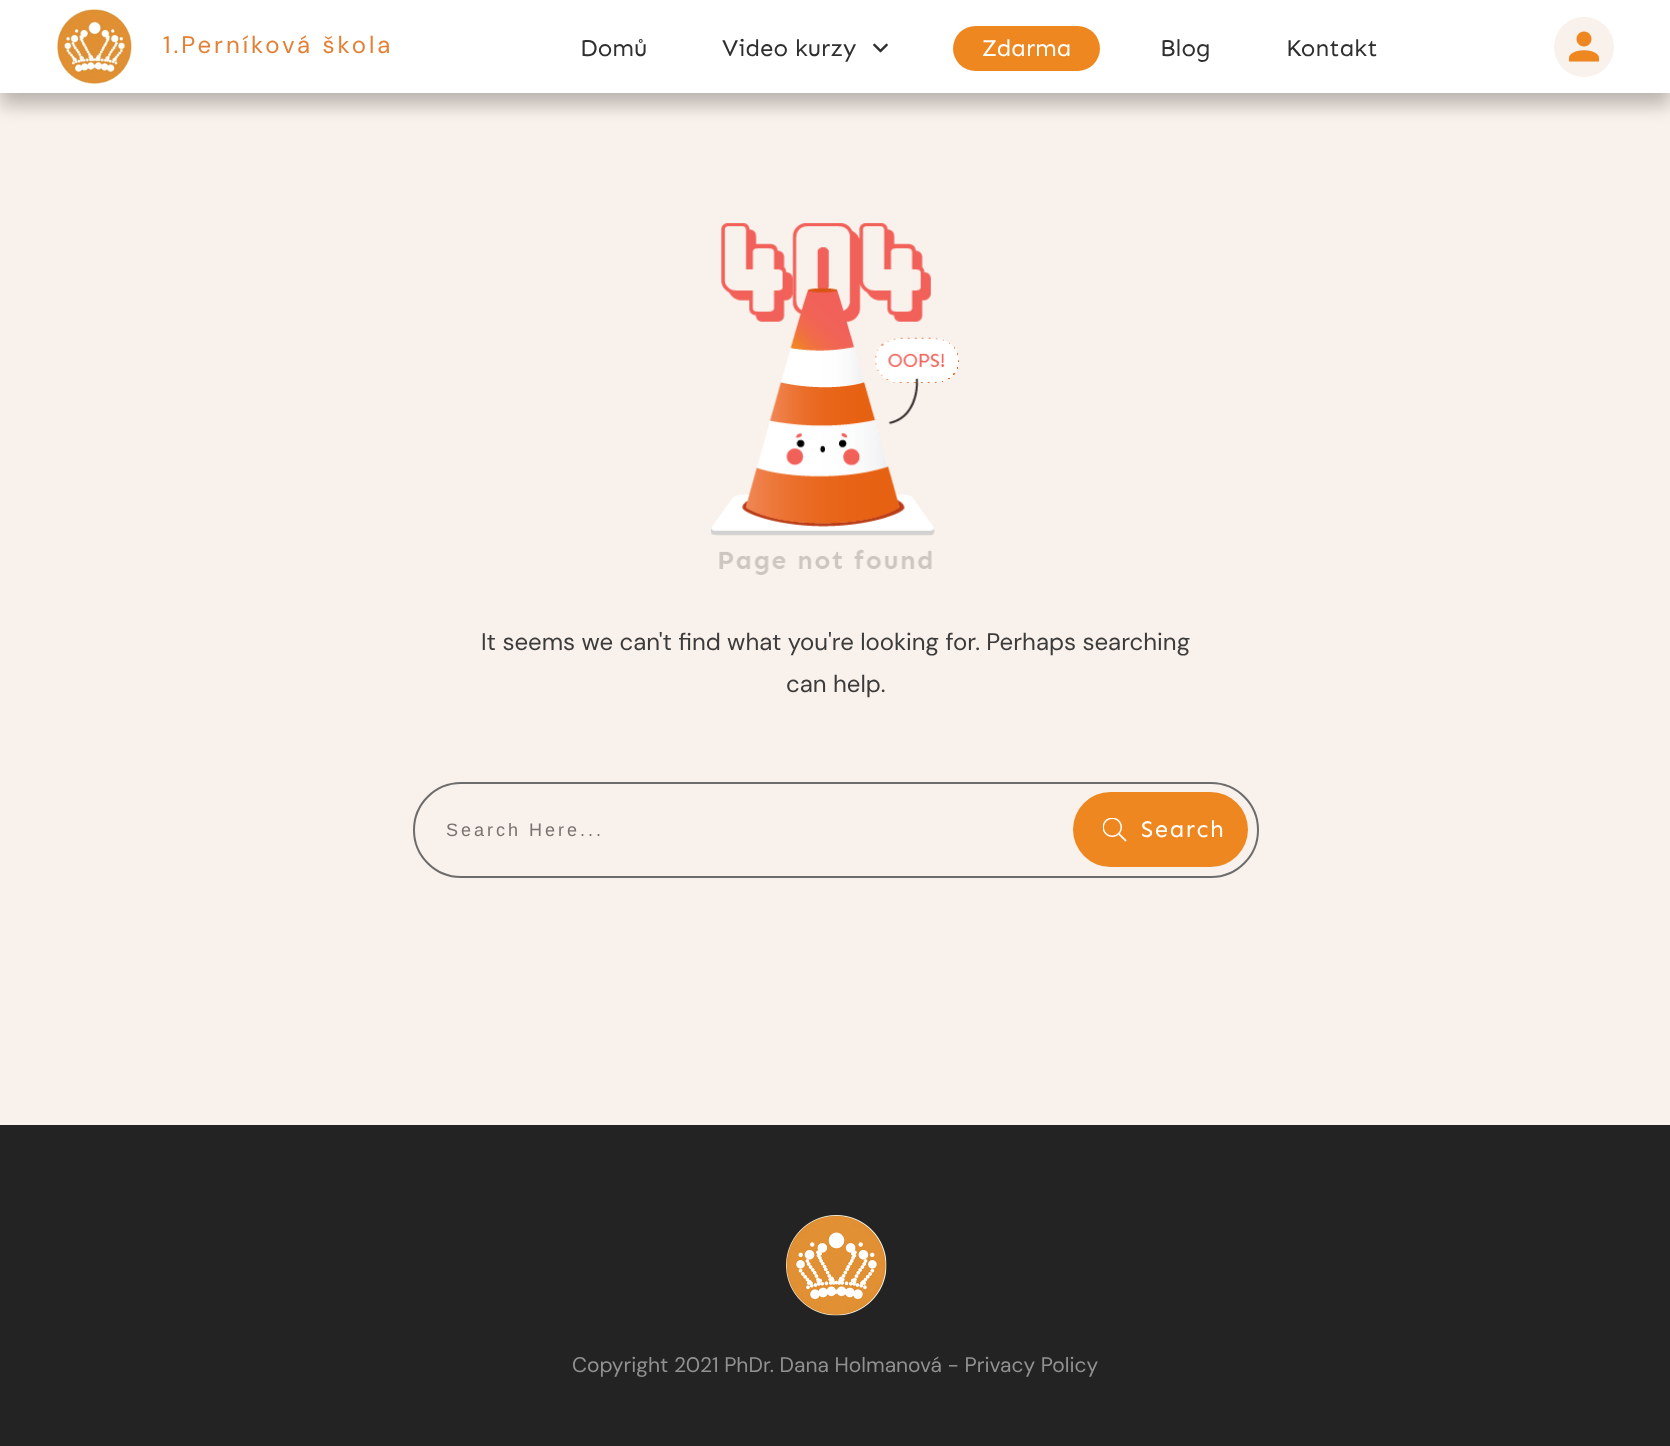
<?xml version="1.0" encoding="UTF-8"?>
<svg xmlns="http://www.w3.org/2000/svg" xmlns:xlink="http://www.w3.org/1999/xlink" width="1670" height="1446">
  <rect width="100%" height="100%" fill="#f9f1eb" />
  <rect y="12" width="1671" height="93" fill="#000000" fill-opacity="0.25" filter="blur(9px)" />
  <rect width="1670" height="93" fill="#ffffff" />
  <image x="57" y="9" width="75" height="75" xlink:href="image1.png" />
  <image x="873" y="43" width="15" height="10" xlink:href="image2.png" />
  <rect x="953" y="26" width="147" height="45" rx="22.5" fill="#ee8720" />
  <circle cx="1584" cy="47" r="30" fill="#f9f1eb" />
  <image x="1569" y="31" width="30" height="31" xlink:href="image3.png" />
  <image x="711" y="223" width="248" height="352" xlink:href="image4.png" />
  <rect x="414" y="783" width="844" height="94" rx="47" fill="none" stroke="#6c6c6c" stroke-width="2" />
  <rect x="1073" y="792" width="175" height="75" rx="37.5" fill="#ee8720" />
  <image x="1103" y="818" width="24" height="24" xlink:href="image5.png" />
  <rect y="1125" width="1670" height="321" fill="#232323" />
  <image x="786" y="1215" width="101" height="101" xlink:href="image6.png" />
  <text x="163" y="53" style="font-family: DM Sans; font-size: 24px; letter-spacing: 3px; fill: #e48036">1.Perníková škola</text>
  <text x="580" y="56" style="font-family: Sen; font-size: 24px; fill: #2f2f2f">Domů</text>
  <text x="722" y="56" style="font-family: Sen; font-size: 24px; fill: #2f2f2f">Video kurzy</text>
  <text x="982" y="56" style="font-family: Sen; font-size: 24px; fill: #ffffff">Zdarma</text>
  <text x="1160" y="56" style="font-family: Sen; font-size: 24px; fill: #2f2f2f">Blog</text>
  <text x="1286" y="56" style="font-family: Sen; font-size: 24px; fill: #2f2f2f">Kontakt</text>
  <text x="481" y="650" style="font-family: DM Sans; font-size: 24px; fill: #3b3b3b">It seems we can't find what you're looking for. Perhaps searching</text>
  <text x="786" y="692" style="font-family: DM Sans; font-size: 24px; fill: #3b3b3b">can help.</text>
  <text x="446" y="836" style="font-family: Liberation Sans; font-size: 18px; letter-spacing: 3px; fill: #787471">Search Here...</text>
  <text x="1141" y="837" style="font-family: Sen; font-size: 24px; letter-spacing: 1.5px; fill: #ffffff">Search</text>
  <text x="572" y="1372" style="font-family: DM Sans; font-size: 21px; fill: #919191">Copyright 2021 PhDr. Dana Holmanová - Privacy Policy</text>
</svg>
